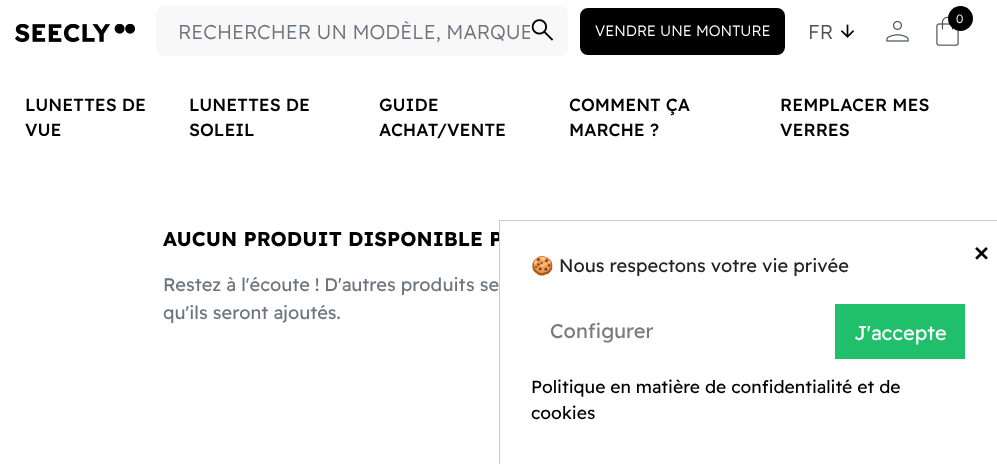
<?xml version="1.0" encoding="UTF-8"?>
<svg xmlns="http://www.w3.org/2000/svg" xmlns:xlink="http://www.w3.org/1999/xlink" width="997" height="464">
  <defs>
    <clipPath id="clip1"><rect x="178" y="19" width="352" height="25" /></clipPath>
  </defs>
  <rect width="100%" height="100%" fill="#ffffff" />
  <image x="936" y="16" width="23" height="30" xlink:href="image1.png" />
  <circle cx="960.5" cy="18.5" r="12.5" fill="#000000" />
  <image x="15" y="24" width="120" height="18" xlink:href="image2.png" />
  <rect x="156" y="6" width="412" height="50" rx="8" fill="#f8f8f8" />
  <image x="531" y="19" width="23" height="22" xlink:href="image3.png" />
  <rect x="581.5" y="9.5" width="202" height="44" rx="6.5" fill="#000000" stroke="#000000" stroke-width="3" />
  <image x="840" y="24" width="15" height="14" xlink:href="image4.png" />
  <image x="886" y="20" width="23" height="22" xlink:href="image5.png" />
  <text x="956" y="23" style="font-family: Readex Pro; font-size: 12px; font-weight: 300; fill: #ffffff">0</text>
  <g clip-path="url(#clip1)">
    <text x="178" y="39" style="font-family: Readex Pro; font-size: 20px; font-weight: 300; fill: #6c757d">RECHERCHER UN MODÈLE, MARQUE</text>
  </g>
  <text x="595" y="36" style="font-family: Readex Pro; font-size: 15px; font-weight: 300; fill: #ffffff">VENDRE UNE MONTURE</text>
  <text x="808" y="39" style="font-family: Readex Pro; font-size: 20px; font-weight: 300; fill: #495057">FR</text>
  <text x="25" y="111" style="font-family: Readex Pro; font-size: 17.5px; font-weight: 500; fill: #000000">LUNETTES DE</text>
  <text x="25" y="136" style="font-family: Readex Pro; font-size: 17.5px; font-weight: 500; fill: #000000">VUE</text>
  <text x="189" y="111" style="font-family: Readex Pro; font-size: 17.5px; font-weight: 500; fill: #000000">LUNETTES DE</text>
  <text x="189" y="136" style="font-family: Readex Pro; font-size: 17.5px; font-weight: 500; fill: #000000">SOLEIL</text>
  <text x="379" y="111" style="font-family: Readex Pro; font-size: 17.5px; font-weight: 500; fill: #000000">GUIDE</text>
  <text x="379" y="136" style="font-family: Readex Pro; font-size: 17.5px; font-weight: 500; fill: #000000">ACHAT/VENTE</text>
  <text x="569" y="111" style="font-family: Readex Pro; font-size: 17.5px; font-weight: 500; fill: #000000">COMMENT ÇA</text>
  <text x="569" y="136" style="font-family: Readex Pro; font-size: 17.5px; font-weight: 500; fill: #000000">MARCHE ?</text>
  <text x="780" y="111" style="font-family: Readex Pro; font-size: 17.5px; font-weight: 500; fill: #000000">REMPLACER MES</text>
  <text x="780" y="136" style="font-family: Readex Pro; font-size: 17.5px; font-weight: 500; fill: #000000">VERRES</text>
  <text x="163" y="246" style="font-family: Readex Pro; font-size: 20px; font-weight: bold; fill: #000000">AUCUN PRODUIT DISPONIBLE P</text>
  <text x="163" y="291" style="font-family: Readex Pro; font-size: 18.25px; fill: #6c757d">Restez à l'écoute ! D'autres produits se</text>
  <text x="163" y="319" style="font-family: Readex Pro; font-size: 18.25px; fill: #6c757d">qu'ils seront ajoutés.</text>
  <rect x="500" y="233" width="2" height="7" fill="#ffffff" />
  <rect x="499.5" y="220.5" width="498" height="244" fill="none" stroke="#cccccc" />
  <text x="974" y="262" style="font-family: Readex Pro; font-size: 31px; fill: #000000">×</text>
  <text x="531" y="272" style="font-family: Noto Color Emoji; font-size: 18.25px; fill: #232323">🍪</text>
  <text x="559" y="272" style="font-family: Readex Pro; font-size: 18.25px; fill: #232323">Nous respectons votre vie privée</text>
  <text x="550" y="338" style="font-family: Readex Pro; font-size: 20px; fill: #7a7a7a">Configurer</text>
  <rect x="835" y="304" width="130" height="55" fill="#20bf6b" />
  <text x="854" y="340" style="font-family: Readex Pro; font-size: 20px; fill: #ffffff">J'accepte</text>
  <text x="531" y="393" style="font-family: Readex Pro; font-size: 17.5px; fill: #000000">Politique en matière de confidentialité et de</text>
  <text x="531" y="419" style="font-family: Readex Pro; font-size: 17.5px; fill: #000000">cookies</text>
</svg>
